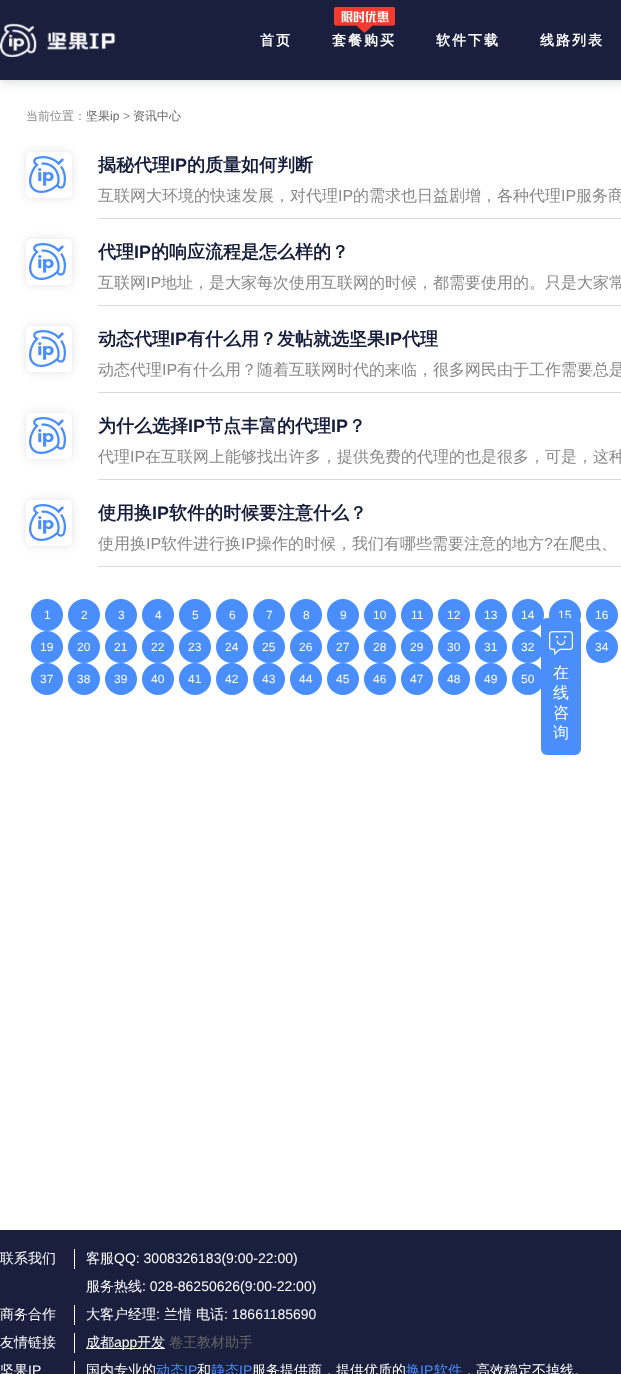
<?xml version="1.0" encoding="UTF-8"?>
<svg xmlns="http://www.w3.org/2000/svg" xmlns:xlink="http://www.w3.org/1999/xlink" width="621" height="1374">
  <defs>
    <clipPath id="clip1"><path d="M 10 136 h 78 v 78 h -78 z m 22 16 h 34 c 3.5 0 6 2.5 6 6 v 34 c 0 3.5 -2.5 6 -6 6 h -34 c -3.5 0 -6 -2.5 -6 -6 v -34 c 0 -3.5 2.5 -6 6 -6 z" clip-rule="evenodd" /></clipPath>
    <clipPath id="clip2"><path d="M 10 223 h 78 v 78 h -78 z m 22 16 h 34 c 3.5 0 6 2.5 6 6 v 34 c 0 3.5 -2.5 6 -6 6 h -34 c -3.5 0 -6 -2.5 -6 -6 v -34 c 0 -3.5 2.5 -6 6 -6 z" clip-rule="evenodd" /></clipPath>
    <clipPath id="clip3"><path d="M 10 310 h 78 v 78 h -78 z m 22 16 h 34 c 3.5 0 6 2.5 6 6 v 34 c 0 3.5 -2.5 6 -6 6 h -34 c -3.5 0 -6 -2.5 -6 -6 v -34 c 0 -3.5 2.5 -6 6 -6 z" clip-rule="evenodd" /></clipPath>
    <clipPath id="clip4"><path d="M 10 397 h 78 v 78 h -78 z m 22 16 h 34 c 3.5 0 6 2.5 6 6 v 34 c 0 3.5 -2.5 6 -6 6 h -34 c -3.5 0 -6 -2.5 -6 -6 v -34 c 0 -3.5 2.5 -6 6 -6 z" clip-rule="evenodd" /></clipPath>
    <clipPath id="clip5"><path d="M 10 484 h 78 v 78 h -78 z m 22 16 h 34 c 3.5 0 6 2.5 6 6 v 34 c 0 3.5 -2.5 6 -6 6 h -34 c -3.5 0 -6 -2.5 -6 -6 v -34 c 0 -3.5 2.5 -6 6 -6 z" clip-rule="evenodd" /></clipPath>
    <linearGradient id="g1" gradientUnits="userSpaceOnUse" x1="86" y1="1259" x2="56" y2="1259"><stop offset="0" stop-color="#1a1f3e" /><stop offset="0.37" stop-color="#1a1f3e" /><stop offset="0.37" stop-color="#ffffff" /><stop offset="0.4" stop-color="#ffffff" /><stop offset="0.4" stop-color="#1a1f3e" /><stop offset="0.77" stop-color="#1a1f3e" /></linearGradient>
    <linearGradient id="g2" gradientUnits="userSpaceOnUse" x1="86" y1="1315" x2="56" y2="1315"><stop offset="0" stop-color="#1a1f3e" /><stop offset="0.37" stop-color="#1a1f3e" /><stop offset="0.37" stop-color="#ffffff" /><stop offset="0.4" stop-color="#ffffff" /><stop offset="0.4" stop-color="#1a1f3e" /><stop offset="0.77" stop-color="#1a1f3e" /></linearGradient>
    <linearGradient id="g3" gradientUnits="userSpaceOnUse" x1="86" y1="1343" x2="56" y2="1343"><stop offset="0" stop-color="#1a1f3e" /><stop offset="0.37" stop-color="#1a1f3e" /><stop offset="0.37" stop-color="#ffffff" /><stop offset="0.4" stop-color="#ffffff" /><stop offset="0.4" stop-color="#1a1f3e" /><stop offset="0.77" stop-color="#1a1f3e" /></linearGradient>
    <linearGradient id="g4" gradientUnits="userSpaceOnUse" x1="86" y1="1371" x2="56" y2="1371"><stop offset="0" stop-color="#1a1f3e" /><stop offset="0.37" stop-color="#1a1f3e" /><stop offset="0.37" stop-color="#ffffff" /><stop offset="0.4" stop-color="#ffffff" /><stop offset="0.4" stop-color="#1a1f3e" /><stop offset="0.77" stop-color="#1a1f3e" /></linearGradient>
    <clipPath id="clip6"><rect x="98" y="188" width="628" height="16" /></clipPath>
    <clipPath id="clip7"><rect x="98" y="275" width="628" height="16" /></clipPath>
    <clipPath id="clip8"><rect x="98" y="362" width="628" height="16" /></clipPath>
    <clipPath id="clip9"><rect x="98" y="449" width="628" height="16" /></clipPath>
    <clipPath id="clip10"><rect x="98" y="536" width="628" height="16" /></clipPath>
  </defs>
  <rect width="100%" height="100%" fill="#ffffff" />
  <rect y="2" width="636" height="80" fill="#1b2126" fill-opacity="0.17" filter="blur(5px)" />
  <rect width="621" height="80" fill="#1a1f3e" />
  <image x="0" y="23" width="116" height="34" xlink:href="image1.png" />
  <image x="334" y="7" width="61" height="26" xlink:href="image2.png" />
  <g clip-path="url(#clip1)">
    <rect x="26" y="152" width="46" height="46" rx="6" fill="#000000" fill-opacity="0.11" filter="blur(5px)" />
  </g>
  <image x="29" y="156" width="37" height="37" xlink:href="image3.png" />
  <rect x="98" y="218" width="523" height="1" fill="#d8dadf" />
  <g clip-path="url(#clip2)">
    <rect x="26" y="239" width="46" height="46" rx="6" fill="#000000" fill-opacity="0.11" filter="blur(5px)" />
  </g>
  <image x="29" y="243" width="37" height="37" xlink:href="image3.png" />
  <rect x="98" y="305" width="523" height="1" fill="#d8dadf" />
  <g clip-path="url(#clip3)">
    <rect x="26" y="326" width="46" height="46" rx="6" fill="#000000" fill-opacity="0.11" filter="blur(5px)" />
  </g>
  <image x="29" y="330" width="37" height="37" xlink:href="image3.png" />
  <rect x="98" y="392" width="523" height="1" fill="#d8dadf" />
  <g clip-path="url(#clip4)">
    <rect x="26" y="413" width="46" height="46" rx="6" fill="#000000" fill-opacity="0.11" filter="blur(5px)" />
  </g>
  <image x="29" y="417" width="37" height="37" xlink:href="image3.png" />
  <rect x="98" y="479" width="523" height="1" fill="#d8dadf" />
  <g clip-path="url(#clip5)">
    <rect x="26" y="500" width="46" height="46" rx="6" fill="#000000" fill-opacity="0.11" filter="blur(5px)" />
  </g>
  <image x="29" y="504" width="37" height="37" xlink:href="image3.png" />
  <rect x="98" y="566" width="523" height="1" fill="#d8dadf" />
  <circle cx="47" cy="615" r="16" fill="#4a8efd" />
  <circle cx="84" cy="615" r="16" fill="#4a8efd" />
  <circle cx="121" cy="615" r="16" fill="#4a8efd" />
  <circle cx="158" cy="615" r="16" fill="#4a8efd" />
  <circle cx="195" cy="615" r="16" fill="#4a8efd" />
  <circle cx="232" cy="615" r="16" fill="#4a8efd" />
  <circle cx="269" cy="615" r="16" fill="#4a8efd" />
  <circle cx="306" cy="615" r="16" fill="#4a8efd" />
  <circle cx="343" cy="615" r="16" fill="#4a8efd" />
  <circle cx="380" cy="615" r="16" fill="#4a8efd" />
  <circle cx="417" cy="615" r="16" fill="#4a8efd" />
  <circle cx="454" cy="615" r="16" fill="#4a8efd" />
  <circle cx="491" cy="615" r="16" fill="#4a8efd" />
  <circle cx="528" cy="615" r="16" fill="#4a8efd" />
  <circle cx="565" cy="615" r="16" fill="#4a8efd" />
  <circle cx="602" cy="615" r="16" fill="#4a8efd" />
  <circle cx="47" cy="647" r="16" fill="#4a8efd" />
  <circle cx="84" cy="647" r="16" fill="#4a8efd" />
  <circle cx="121" cy="647" r="16" fill="#4a8efd" />
  <circle cx="158" cy="647" r="16" fill="#4a8efd" />
  <circle cx="195" cy="647" r="16" fill="#4a8efd" />
  <circle cx="232" cy="647" r="16" fill="#4a8efd" />
  <circle cx="269" cy="647" r="16" fill="#4a8efd" />
  <circle cx="306" cy="647" r="16" fill="#4a8efd" />
  <circle cx="343" cy="647" r="16" fill="#4a8efd" />
  <circle cx="380" cy="647" r="16" fill="#4a8efd" />
  <circle cx="417" cy="647" r="16" fill="#4a8efd" />
  <circle cx="454" cy="647" r="16" fill="#4a8efd" />
  <circle cx="491" cy="647" r="16" fill="#4a8efd" />
  <circle cx="528" cy="647" r="16" fill="#4a8efd" />
  <circle cx="602" cy="647" r="16" fill="#4a8efd" />
  <circle cx="47" cy="679" r="16" fill="#4a8efd" />
  <circle cx="84" cy="679" r="16" fill="#4a8efd" />
  <circle cx="121" cy="679" r="16" fill="#4a8efd" />
  <circle cx="158" cy="679" r="16" fill="#4a8efd" />
  <circle cx="195" cy="679" r="16" fill="#4a8efd" />
  <circle cx="232" cy="679" r="16" fill="#4a8efd" />
  <circle cx="269" cy="679" r="16" fill="#4a8efd" />
  <circle cx="306" cy="679" r="16" fill="#4a8efd" />
  <circle cx="343" cy="679" r="16" fill="#4a8efd" />
  <circle cx="380" cy="679" r="16" fill="#4a8efd" />
  <circle cx="417" cy="679" r="16" fill="#4a8efd" />
  <circle cx="454" cy="679" r="16" fill="#4a8efd" />
  <circle cx="491" cy="679" r="16" fill="#4a8efd" />
  <circle cx="528" cy="679" r="16" fill="#4a8efd" />
  <rect y="1230" width="621" height="144" fill="#1a1f3e" />
  <rect x="74" y="1249" width="1" height="20" fill="url(#g1)" />
  <rect x="74" y="1305" width="1" height="20" fill="url(#g2)" />
  <rect x="74" y="1333" width="1" height="20" fill="url(#g3)" />
  <rect x="86" y="1348" width="79" height="1" fill="#ffffff" />
  <rect x="74" y="1361" width="1" height="13" fill="url(#g4)" />
  <text x="260" y="45" style="font-family: WenQuanYi Zen Hei; font-size: 14px; font-weight: bold; letter-spacing: 2px; fill: #ffffff">首页</text>
  <text x="332" y="45" style="font-family: WenQuanYi Zen Hei; font-size: 14px; font-weight: bold; letter-spacing: 2px; fill: #ffffff">套餐购买</text>
  <text x="436" y="45" style="font-family: WenQuanYi Zen Hei; font-size: 14px; font-weight: bold; letter-spacing: 2px; fill: #ffffff">软件下载</text>
  <text x="540" y="45" style="font-family: WenQuanYi Zen Hei; font-size: 14px; font-weight: bold; letter-spacing: 2px; fill: #ffffff">线路列表</text>
  <text x="26" y="120" style="font-family: WenQuanYi Zen Hei; font-size: 12px; font-weight: 500; fill: #888888">当前位置：</text>
  <text x="86" y="120" style="font-family: WenQuanYi Zen Hei; font-size: 12px; font-weight: 500; fill: #666666">坚果</text>
  <text x="110" y="120" style="font-family: Liberation Sans; font-size: 12px; fill: #666666">ip</text>
  <text x="123" y="120" style="font-family: Liberation Sans; font-size: 12px; fill: #888888">&gt;</text>
  <text x="133" y="120" style="font-family: WenQuanYi Zen Hei; font-size: 12px; font-weight: 500; fill: #666666">资讯中心</text>
  <text x="98" y="171" style="font-family: WenQuanYi Zen Hei; font-size: 18px; font-weight: bold; fill: #161c3b">揭秘代理</text>
  <text x="170" y="171" style="font-family: Liberation Sans; font-size: 18px; font-weight: bold; fill: #161c3b">IP</text>
  <text x="187" y="171" style="font-family: WenQuanYi Zen Hei; font-size: 18px; font-weight: bold; fill: #161c3b">的质量如何判断</text>
  <g clip-path="url(#clip6)">
    <text x="98" y="201" style="font-family: WenQuanYi Zen Hei; font-size: 16px; font-weight: 500; fill: #888888">互联网大环境的快速发展，对代理</text>
  </g>
  <text x="338" y="201" style="font-family: Liberation Sans; font-size: 16px; fill: #888888">IP</text>
  <g clip-path="url(#clip6)">
    <text x="353" y="201" style="font-family: WenQuanYi Zen Hei; font-size: 16px; font-weight: 500; fill: #888888">的需求也日益剧增，各种代理</text>
  </g>
  <text x="561" y="201" style="font-family: Liberation Sans; font-size: 16px; fill: #888888">IP</text>
  <text x="576" y="201" style="font-family: WenQuanYi Zen Hei; font-size: 16px; font-weight: 500; fill: #888888">服务商</text>
  <text x="98" y="258" style="font-family: WenQuanYi Zen Hei; font-size: 18px; font-weight: bold; fill: #161c3b">代理</text>
  <text x="134" y="258" style="font-family: Liberation Sans; font-size: 18px; font-weight: bold; fill: #161c3b">IP</text>
  <text x="151" y="258" style="font-family: WenQuanYi Zen Hei; font-size: 18px; font-weight: bold; fill: #161c3b">的响应流程是怎么样的？</text>
  <text x="98" y="288" style="font-family: WenQuanYi Zen Hei; font-size: 16px; font-weight: 500; fill: #888888">互联网</text>
  <text x="146" y="288" style="font-family: Liberation Sans; font-size: 16px; fill: #888888">IP</text>
  <g clip-path="url(#clip7)">
    <text x="161" y="288" style="font-family: WenQuanYi Zen Hei; font-size: 16px; font-weight: 500; fill: #888888">地址，是大家每次使用互联网的时候，都需要使用的。只是大家常</text>
  </g>
  <text x="98" y="345" style="font-family: WenQuanYi Zen Hei; font-size: 18px; font-weight: bold; fill: #161c3b">动态代理</text>
  <text x="170" y="345" style="font-family: Liberation Sans; font-size: 18px; font-weight: bold; fill: #161c3b">IP</text>
  <text x="187" y="345" style="font-family: WenQuanYi Zen Hei; font-size: 18px; font-weight: bold; fill: #161c3b">有什么用？发帖就选坚果</text>
  <text x="385" y="345" style="font-family: Liberation Sans; font-size: 18px; font-weight: bold; fill: #161c3b">IP</text>
  <text x="402" y="345" style="font-family: WenQuanYi Zen Hei; font-size: 18px; font-weight: bold; fill: #161c3b">代理</text>
  <text x="98" y="375" style="font-family: WenQuanYi Zen Hei; font-size: 16px; font-weight: 500; fill: #888888">动态代理</text>
  <text x="162" y="375" style="font-family: Liberation Sans; font-size: 16px; fill: #888888">IP</text>
  <g clip-path="url(#clip8)">
    <text x="177" y="375" style="font-family: WenQuanYi Zen Hei; font-size: 16px; font-weight: 500; fill: #888888">有什么用？随着互联网时代的来临，很多网民由于工作需要总是</text>
  </g>
  <text x="98" y="432" style="font-family: WenQuanYi Zen Hei; font-size: 18px; font-weight: bold; fill: #161c3b">为什么选择</text>
  <text x="188" y="432" style="font-family: Liberation Sans; font-size: 18px; font-weight: bold; fill: #161c3b">IP</text>
  <text x="205" y="432" style="font-family: WenQuanYi Zen Hei; font-size: 18px; font-weight: bold; fill: #161c3b">节点丰富的代理</text>
  <text x="331" y="432" style="font-family: Liberation Sans; font-size: 18px; font-weight: bold; fill: #161c3b">IP</text>
  <text x="348" y="432" style="font-family: WenQuanYi Zen Hei; font-size: 18px; font-weight: bold; fill: #161c3b">？</text>
  <text x="98" y="462" style="font-family: WenQuanYi Zen Hei; font-size: 16px; font-weight: 500; fill: #888888">代理</text>
  <text x="130" y="462" style="font-family: Liberation Sans; font-size: 16px; fill: #888888">IP</text>
  <g clip-path="url(#clip9)">
    <text x="145" y="462" style="font-family: WenQuanYi Zen Hei; font-size: 16px; font-weight: 500; fill: #888888">在互联网上能够找出许多，提供免费的代理的也是很多，可是，这种</text>
  </g>
  <text x="98" y="519" style="font-family: WenQuanYi Zen Hei; font-size: 18px; font-weight: bold; fill: #161c3b">使用换</text>
  <text x="152" y="519" style="font-family: Liberation Sans; font-size: 18px; font-weight: bold; fill: #161c3b">IP</text>
  <text x="169" y="519" style="font-family: WenQuanYi Zen Hei; font-size: 18px; font-weight: bold; fill: #161c3b">软件的时候要注意什么？</text>
  <text x="98" y="549" style="font-family: WenQuanYi Zen Hei; font-size: 16px; font-weight: 500; fill: #888888">使用换</text>
  <text x="146" y="549" style="font-family: Liberation Sans; font-size: 16px; fill: #888888">IP</text>
  <g clip-path="url(#clip10)">
    <text x="161" y="549" style="font-family: WenQuanYi Zen Hei; font-size: 16px; font-weight: 500; fill: #888888">软件进行换</text>
  </g>
  <text x="241" y="549" style="font-family: Liberation Sans; font-size: 16px; fill: #888888">IP</text>
  <g clip-path="url(#clip10)">
    <text x="256" y="549" style="font-family: WenQuanYi Zen Hei; font-size: 16px; font-weight: 500; fill: #888888">操作的时候，我们有哪些需要注意的地方</text>
  </g>
  <text x="544" y="549" style="font-family: Liberation Sans; font-size: 16px; fill: #888888">?</text>
  <text x="553" y="549" style="font-family: WenQuanYi Zen Hei; font-size: 16px; font-weight: 500; fill: #888888">在爬虫、</text>
  <text x="44" y="619" style="font-family: Liberation Sans; font-size: 12px; fill: #ffffff">1</text>
  <text x="81" y="619" style="font-family: Liberation Sans; font-size: 12px; fill: #ffffff">2</text>
  <text x="118" y="619" style="font-family: Liberation Sans; font-size: 12px; fill: #ffffff">3</text>
  <text x="155" y="619" style="font-family: Liberation Sans; font-size: 12px; fill: #ffffff">4</text>
  <text x="192" y="619" style="font-family: Liberation Sans; font-size: 12px; fill: #ffffff">5</text>
  <text x="229" y="619" style="font-family: Liberation Sans; font-size: 12px; fill: #ffffff">6</text>
  <text x="266" y="619" style="font-family: Liberation Sans; font-size: 12px; fill: #ffffff">7</text>
  <text x="303" y="619" style="font-family: Liberation Sans; font-size: 12px; fill: #ffffff">8</text>
  <text x="340" y="619" style="font-family: Liberation Sans; font-size: 12px; fill: #ffffff">9</text>
  <text x="373" y="619" style="font-family: Liberation Sans; font-size: 12px; fill: #ffffff">10</text>
  <text x="411" y="619" style="font-family: Liberation Sans; font-size: 12px; fill: #ffffff">11</text>
  <text x="447" y="619" style="font-family: Liberation Sans; font-size: 12px; fill: #ffffff">12</text>
  <text x="484" y="619" style="font-family: Liberation Sans; font-size: 12px; fill: #ffffff">13</text>
  <text x="521" y="619" style="font-family: Liberation Sans; font-size: 12px; fill: #ffffff">14</text>
  <text x="558" y="619" style="font-family: Liberation Sans; font-size: 12px; fill: #ffffff">15</text>
  <text x="595" y="619" style="font-family: Liberation Sans; font-size: 12px; fill: #ffffff">16</text>
  <text x="40" y="651" style="font-family: Liberation Sans; font-size: 12px; fill: #ffffff">19</text>
  <text x="77" y="651" style="font-family: Liberation Sans; font-size: 12px; fill: #ffffff">20</text>
  <text x="114" y="651" style="font-family: Liberation Sans; font-size: 12px; fill: #ffffff">21</text>
  <text x="151" y="651" style="font-family: Liberation Sans; font-size: 12px; fill: #ffffff">22</text>
  <text x="188" y="651" style="font-family: Liberation Sans; font-size: 12px; fill: #ffffff">23</text>
  <text x="225" y="651" style="font-family: Liberation Sans; font-size: 12px; fill: #ffffff">24</text>
  <text x="262" y="651" style="font-family: Liberation Sans; font-size: 12px; fill: #ffffff">25</text>
  <text x="299" y="651" style="font-family: Liberation Sans; font-size: 12px; fill: #ffffff">26</text>
  <text x="336" y="651" style="font-family: Liberation Sans; font-size: 12px; fill: #ffffff">27</text>
  <text x="373" y="651" style="font-family: Liberation Sans; font-size: 12px; fill: #ffffff">28</text>
  <text x="410" y="651" style="font-family: Liberation Sans; font-size: 12px; fill: #ffffff">29</text>
  <text x="447" y="651" style="font-family: Liberation Sans; font-size: 12px; fill: #ffffff">30</text>
  <text x="484" y="651" style="font-family: Liberation Sans; font-size: 12px; fill: #ffffff">31</text>
  <text x="521" y="651" style="font-family: Liberation Sans; font-size: 12px; fill: #ffffff">32</text>
  <text x="595" y="651" style="font-family: Liberation Sans; font-size: 12px; fill: #ffffff">34</text>
  <text x="40" y="683" style="font-family: Liberation Sans; font-size: 12px; fill: #ffffff">37</text>
  <text x="77" y="683" style="font-family: Liberation Sans; font-size: 12px; fill: #ffffff">38</text>
  <text x="114" y="683" style="font-family: Liberation Sans; font-size: 12px; fill: #ffffff">39</text>
  <text x="151" y="683" style="font-family: Liberation Sans; font-size: 12px; fill: #ffffff">40</text>
  <text x="188" y="683" style="font-family: Liberation Sans; font-size: 12px; fill: #ffffff">41</text>
  <text x="225" y="683" style="font-family: Liberation Sans; font-size: 12px; fill: #ffffff">42</text>
  <text x="262" y="683" style="font-family: Liberation Sans; font-size: 12px; fill: #ffffff">43</text>
  <text x="299" y="683" style="font-family: Liberation Sans; font-size: 12px; fill: #ffffff">44</text>
  <text x="336" y="683" style="font-family: Liberation Sans; font-size: 12px; fill: #ffffff">45</text>
  <text x="373" y="683" style="font-family: Liberation Sans; font-size: 12px; fill: #ffffff">46</text>
  <text x="410" y="683" style="font-family: Liberation Sans; font-size: 12px; fill: #ffffff">47</text>
  <text x="447" y="683" style="font-family: Liberation Sans; font-size: 12px; fill: #ffffff">48</text>
  <text x="484" y="683" style="font-family: Liberation Sans; font-size: 12px; fill: #ffffff">49</text>
  <text x="521" y="683" style="font-family: Liberation Sans; font-size: 12px; fill: #ffffff">50</text>
  <rect x="541" y="618" width="40" height="137" rx="6" fill="#4a8efd" />
  <image x="549" y="631" width="24" height="25" xlink:href="image4.png" />
  <text x="553" y="678" style="font-family: WenQuanYi Zen Hei; font-size: 16px; font-weight: 500; fill: #ffffff">在</text>
  <text x="553" y="698" style="font-family: WenQuanYi Zen Hei; font-size: 16px; font-weight: 500; fill: #ffffff">线</text>
  <text x="553" y="718" style="font-family: WenQuanYi Zen Hei; font-size: 16px; font-weight: 500; fill: #ffffff">咨</text>
  <text x="553" y="738" style="font-family: WenQuanYi Zen Hei; font-size: 16px; font-weight: 500; fill: #ffffff">询</text>
  <text x="0" y="1263" style="font-family: WenQuanYi Zen Hei; font-size: 14px; font-weight: 500; fill: #ffffff">联系我们</text>
  <text x="86" y="1263" style="font-family: WenQuanYi Zen Hei; font-size: 14px; font-weight: 500; fill: #ffffff">客服</text>
  <text x="114" y="1263" style="font-family: Liberation Sans; font-size: 14px; fill: #ffffff">QQ: 3008326183(9:00-22:00)</text>
  <text x="86" y="1291" style="font-family: WenQuanYi Zen Hei; font-size: 14px; font-weight: 500; fill: #ffffff">服务热线</text>
  <text x="142" y="1291" style="font-family: Liberation Sans; font-size: 14px; fill: #ffffff">: 028-86250626(9:00-22:00)</text>
  <text x="0" y="1319" style="font-family: WenQuanYi Zen Hei; font-size: 14px; font-weight: 500; fill: #ffffff">商务合作</text>
  <text x="86" y="1319" style="font-family: WenQuanYi Zen Hei; font-size: 14px; font-weight: 500; fill: #ffffff">大客户经理</text>
  <text x="156" y="1319" style="font-family: Liberation Sans; font-size: 14px; fill: #ffffff">:</text>
  <text x="164" y="1319" style="font-family: WenQuanYi Zen Hei; font-size: 14px; font-weight: 500; fill: #ffffff">兰惜</text>
  <text x="196" y="1319" style="font-family: WenQuanYi Zen Hei; font-size: 14px; font-weight: 500; fill: #ffffff">电话</text>
  <text x="224" y="1319" style="font-family: Liberation Sans; font-size: 14px; fill: #ffffff">: 18661185690</text>
  <text x="0" y="1347" style="font-family: WenQuanYi Zen Hei; font-size: 14px; font-weight: 500; fill: #ffffff">友情链接</text>
  <text x="86" y="1347" style="font-family: WenQuanYi Zen Hei; font-size: 14px; font-weight: 500; fill: #ffffff">成都</text>
  <text x="114" y="1347" style="font-family: Liberation Sans; font-size: 14px; fill: #ffffff">app</text>
  <text x="137" y="1347" style="font-family: WenQuanYi Zen Hei; font-size: 14px; font-weight: 500; fill: #ffffff">开发</text>
  <text x="169" y="1347" style="font-family: WenQuanYi Zen Hei; font-size: 14px; font-weight: 500; fill: #666666">卷王教材助手</text>
  <text x="0" y="1375" style="font-family: WenQuanYi Zen Hei; font-size: 14px; font-weight: 500; fill: #ffffff">坚果</text>
  <text x="28" y="1375" style="font-family: Liberation Sans; font-size: 14px; fill: #ffffff">IP</text>
  <text x="86" y="1375" style="font-family: WenQuanYi Zen Hei; font-size: 14px; font-weight: 500; fill: #ffffff">国内专业的</text>
  <text x="156" y="1375" style="font-family: WenQuanYi Zen Hei; font-size: 14px; font-weight: 500; fill: #4a8efd">动态</text>
  <text x="184" y="1375" style="font-family: Liberation Sans; font-size: 14px; fill: #4a8efd">IP</text>
  <text x="197" y="1375" style="font-family: WenQuanYi Zen Hei; font-size: 14px; font-weight: 500; fill: #ffffff">和</text>
  <text x="211" y="1375" style="font-family: WenQuanYi Zen Hei; font-size: 14px; font-weight: 500; fill: #4a8efd">静态</text>
  <text x="239" y="1375" style="font-family: Liberation Sans; font-size: 14px; fill: #4a8efd">IP</text>
  <text x="252" y="1375" style="font-family: WenQuanYi Zen Hei; font-size: 14px; font-weight: 500; fill: #ffffff">服务提供商，提供优质的</text>
  <text x="406" y="1375" style="font-family: WenQuanYi Zen Hei; font-size: 14px; font-weight: 500; fill: #4a8efd">换</text>
  <text x="420" y="1375" style="font-family: Liberation Sans; font-size: 14px; fill: #4a8efd">IP</text>
  <text x="434" y="1375" style="font-family: WenQuanYi Zen Hei; font-size: 14px; font-weight: 500; fill: #4a8efd">软件</text>
  <text x="462" y="1375" style="font-family: WenQuanYi Zen Hei; font-size: 14px; font-weight: 500; fill: #ffffff">，高效稳定不掉线。</text>
</svg>
